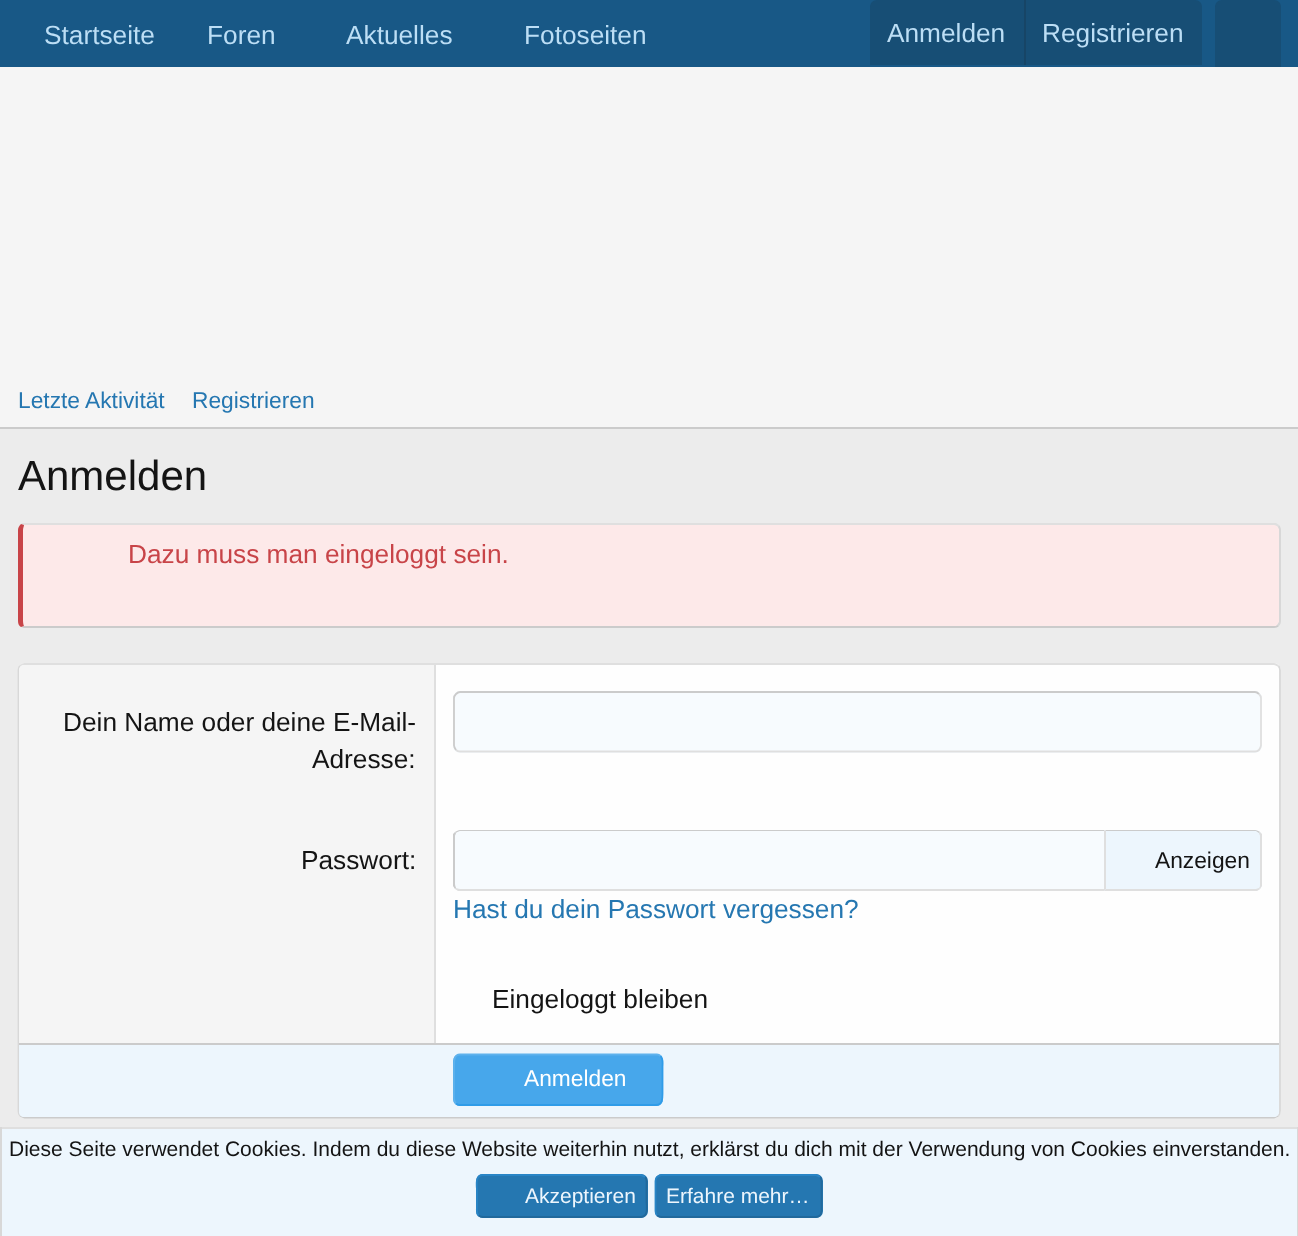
<?xml version="1.0" encoding="UTF-8"?>
<svg xmlns="http://www.w3.org/2000/svg" xmlns:xlink="http://www.w3.org/1999/xlink" width="1298" height="1236">
  <rect width="100%" height="100%" fill="#ececec" />
  <rect width="1298" height="67" fill="#185886" />
  <path d="M 877 0 h 318 c 4 0 7 3 7 7 v 58 h -332 v -58 c 0 -4 3 -7 7 -7 z" fill="#174e75" />
  <rect x="1024" width="2" height="65" fill="#174566" />
  <path d="M 1222 0 h 52 c 4 0 7 3 7 7 v 60 h -66 v -60 c 0 -4 3 -7 7 -7 z" fill="#174e75" />
  <rect y="67" width="1298" height="360" fill="#f5f5f5" />
  <rect y="427" width="1298" height="2" fill="#cbcbcb" />
  <path d="M 24 525 h 1250 c 3 0 5 2 5 5 v 91 c 0 3 -2 5 -5 5 h -1250 c 0 0 -1 -2 -1 -5 v -91 c 0 -3 1 -5 1 -5 z" fill="#fde9e9" />
  <path d="M 24 525 l -3 -1 l 1 -1 h 1254 l 3 2 l -1 2 c -1 -1 -2 -2 -4 -2 z" fill="#dfdfdf" />
  <path d="M 1281 621 v -91 c 0 -2 -1 -4 -2 -5 l -1 2 l 1 2 v 93 l -2 3 l 2 1 c 1 -1 2 -3 2 -5 z" fill="#d8d8d8" />
  <path d="M 1279 626 c -1 1 -3 2 -5 2 h -1250 l -3 -1 l 3 -1 h 1250 c 1 0 3 0 3 -1 z" fill="#cbcbcb" />
  <path d="M 21 627 c -2 -1 -3 -3 -3 -6 v -91 c 0 -2 1 -4 3 -6 l 3 1 c 0 1 -1 3 -1 5 v 91 c 0 3 1 5 1 5 z" fill="#c84448" />
  <rect x="18" y="663" width="1263" height="455" rx="7" fill="#fefefe" />
  <path d="M 20 666 c 1.5 -1 3 -2 4.5 -2 h 1249.5 c 1.5 0 3 1 4.5 2" fill="none" stroke="#dfdfdf" stroke-width="1.8" />
  <path d="M 1278.5 666 c 1 1 1.5 2.5 1.5 4 v 441 c 0 2 -0.5 3.5 -1.5 4.5" fill="none" stroke="#d8d8d8" stroke-width="1.8" />
  <path d="M 1278.5 1115.5 c -1.5 1 -3 2 -4.5 2 h -1249.5 c -1.5 0 -3 -1 -4.5 -2" fill="none" stroke="#cbcbcb" stroke-width="1.8" />
  <path d="M 20 1115.5 c -1 -1 -1.5 -2.5 -1.5 -4.5 v -441 c 0 -1.5 0.5 -3 1.5 -4" fill="none" stroke="#d8d8d8" stroke-width="1.8" />
  <path d="M 24 665 h 412 v 138 h -417 v -133 c 0 -3 2 -5 5 -5 z" fill="#f5f5f5" />
  <rect x="434" y="665" width="2" height="378" fill="#dfdfdf" />
  <rect x="453" y="691" width="809" height="62" rx="7" fill="#f7fbfe" />
  <path d="M 1259 694 c 1 1 2 2.5 2 4 v 47.5 c 0 1.5 -1 3 -2 4.5 c -1 1 -2.5 1.5 -4 1.5 h -795 c -1.5 0 -3 -0.5 -4 -1.5" fill="none" stroke="#dfdfdf" stroke-width="1.8" />
  <path d="M 456 750 c -1 -1.5 -2 -3 -2 -4.5 v -47.5 c 0 -1.5 1 -3 2 -4 c 1 -1 2.5 -2 4 -2 h 795 c 1.5 0 3 1 4 2" fill="none" stroke="#cbcbcb" stroke-width="1.8" />
  <rect x="19" y="803" width="415" height="240" fill="#f5f5f5" />
  <path d="M 460 830 h 644 v 61 h -644 c -4 0 -7 -3 -7 -7 v -47 c 0 -4 3 -7 7 -7 z" fill="#f7fbfe" />
  <path d="M 460 830 h 644 v 1 h -644 c -1 0 -3 1 -4 2 l -1 -1 c 2 -1 3 -2 5 -2 z" fill="#cbcbcb" />
  <path d="M 458 891 l -3 -2 l 1 -1 c 1 0 2 1 4 1 h 644 v 2 z" fill="#dfdfdf" />
  <path d="M 456 888 l -1 1 l -2 -3 v -52 l 2 -2 l 1 1 c 0 1 -1 2 -1 3 v 48 c 0 2 1 3 1 4 z" fill="#cbcbcb" />
  <path d="M 1104 830 h 151 c 4 0 7 3 7 7 v 47 c 0 4 -3 7 -7 7 h -151 z" fill="#edf6fd" />
  <path d="M 1106 831 h 150 l 3 2 l 1 -1 c -2 -1 -3 -2 -5 -2 h -150 z" fill="#cbcbcb" />
  <path d="M 1260 832 l 2 2 v 52 l -2 3 l -1 -1 c 1 -1 1 -2 1 -4 v -48 c 0 -1 -1 -2 -1 -3 z" fill="#dfdfdf" />
  <path d="M 1260 889 l -3 2 h -153 l 2 -2 h 150 l 3 -1 z" fill="#dfdfdf" />
  <path d="M 1104 891 l 2 -2 v -58 l -2 -1 z" fill="#dfdfdf" />
  <path d="M 19 1043 h 1260 v 69 c 0 3 -2 5 -5 5 h -1250 c -3 0 -5 -2 -5 -5 z" fill="#edf6fd" />
  <rect x="19" y="1043" width="1260" height="2" fill="#cbcbcb" />
  <rect x="453" y="1054" width="210" height="52" rx="7" fill="#47a7eb" />
  <path d="M 660.5 1056 c 3 3 2 7.5 2 11 v 25.5 c 0 5 0.5 12.5 -6.5 12.5 h -196.5 c -1.5 0 -2.5 -0.5 -3.5 -1.5" fill="none" stroke="#309ce8" stroke-width="1.8" />
  <path d="M 456 1103.5 c -3 -3 -2 -7.5 -2 -11 v -25.5 c 0 -5 -0.5 -12.5 6 -12.5 h 197 c 1.5 0 2.5 0.5 3.5 1.5" fill="none" stroke="#5eb2ed" stroke-width="1.8" />
  <rect x="2" y="1129" width="1295" height="107" fill="#edf6fd" />
  <rect y="1127" width="1298" height="2" fill="#dfdfdf" />
  <rect x="1297" y="1127" width="1" height="109" fill="#d8d8d8" />
  <rect y="1127" width="2" height="109" fill="#d8d8d8" />
  <rect x="476" y="1174" width="172" height="44" rx="7" fill="#2577b1" />
  <path d="M 645 1177 c 2.5 2.5 1.5 6 1.5 9 v 15 c 0 5 2.5 16 -6 16 h -157.5 c -1.5 0 -3 -0.5 -4.5 -1.5" fill="none" stroke="#21699c" stroke-width="1.8" />
  <path d="M 478.5 1215.5 c -2.5 -2.5 -1.5 -6.5 -1.5 -9.5 v -15 c 0 -4.5 -2.5 -16 6 -16 h 157.5 c 1.5 0 3 1 4.5 2" fill="none" stroke="#2985c6" stroke-width="1.8" />
  <rect x="655" y="1174" width="168" height="44" rx="7" fill="#2577b1" />
  <path d="M 820 1177 c 1 1 1.5 2.5 1.5 4 v 30 c 0 1.5 -0.5 3 -1.5 4.5 c -1.5 1 -3 1.5 -4.5 1.5 h -154 c -1.5 0 -3 -0.5 -4.5 -1.5" fill="none" stroke="#21699c" stroke-width="1.8" />
  <path d="M 657 1215.5 c -1 -1.5 -1.5 -3 -1.5 -4.5 v -30 c 0 -1.5 0.5 -3 1.5 -4 c 1.5 -1 3 -2 4.5 -2 h 154 c 1.5 0 3 1 4.5 2" fill="none" stroke="#2985c6" stroke-width="1.8" />
  <text x="44" y="44" style="font-family: Liberation Sans; font-size: 26.25px; fill: #bcdef5">Startseite</text>
  <text x="207" y="44" style="font-family: Liberation Sans; font-size: 26.25px; fill: #bcdef5">Foren</text>
  <text x="346" y="44" style="font-family: Liberation Sans; font-size: 26.25px; fill: #bcdef5">Aktuelles</text>
  <text x="524" y="44" style="font-family: Liberation Sans; font-size: 26.25px; fill: #bcdef5">Fotoseiten</text>
  <text x="887" y="42" style="font-family: Liberation Sans; font-size: 26.25px; fill: #bcdef5">Anmelden</text>
  <text x="1042" y="42" style="font-family: Liberation Sans; font-size: 26.25px; fill: #bcdef5">Registrieren</text>
  <text x="18" y="408" style="font-family: Liberation Sans; font-size: 22.75px; fill: #2577b1">Letzte Aktivität</text>
  <text x="192" y="408" style="font-family: Liberation Sans; font-size: 22.75px; fill: #2577b1">Registrieren</text>
  <text x="18" y="490" style="font-family: Liberation Sans; font-size: 42px; fill: #141414">Anmelden</text>
  <text x="128" y="563" style="font-family: Liberation Sans; font-size: 26.25px; fill: #c84448">Dazu muss man eingeloggt sein.</text>
  <text x="63" y="731" style="font-family: Liberation Sans; font-size: 26.25px; fill: #141414">Dein Name oder deine E-Mail-</text>
  <text x="312" y="768" style="font-family: Liberation Sans; font-size: 26.25px; fill: #141414">Adresse:</text>
  <text x="301" y="869" style="font-family: Liberation Sans; font-size: 26.25px; fill: #141414">Passwort:</text>
  <text x="1155" y="868" style="font-family: Liberation Sans; font-size: 22.75px; fill: #141414">Anzeigen</text>
  <text x="453" y="918" style="font-family: Liberation Sans; font-size: 26.25px; fill: #2577b1">Hast du dein Passwort vergessen?</text>
  <text x="492" y="1008" style="font-family: Liberation Sans; font-size: 26.25px; fill: #141414">Eingeloggt bleiben</text>
  <text x="524" y="1086" style="font-family: Liberation Sans; font-size: 22.75px; fill: #ffffff">Anmelden</text>
  <text x="9" y="1156" style="font-family: Liberation Sans; font-size: 21px; fill: #141414">Diese Seite verwendet Cookies. Indem du diese Website weiterhin nutzt, erklärst du dich mit der Verwendung von Cookies einverstanden.</text>
  <text x="525" y="1203" style="font-family: Liberation Sans; font-size: 21px; fill: #edf6fd">Akzeptieren</text>
  <text x="666" y="1203" style="font-family: Liberation Sans; font-size: 21px; fill: #edf6fd">Erfahre mehr…</text>
</svg>
